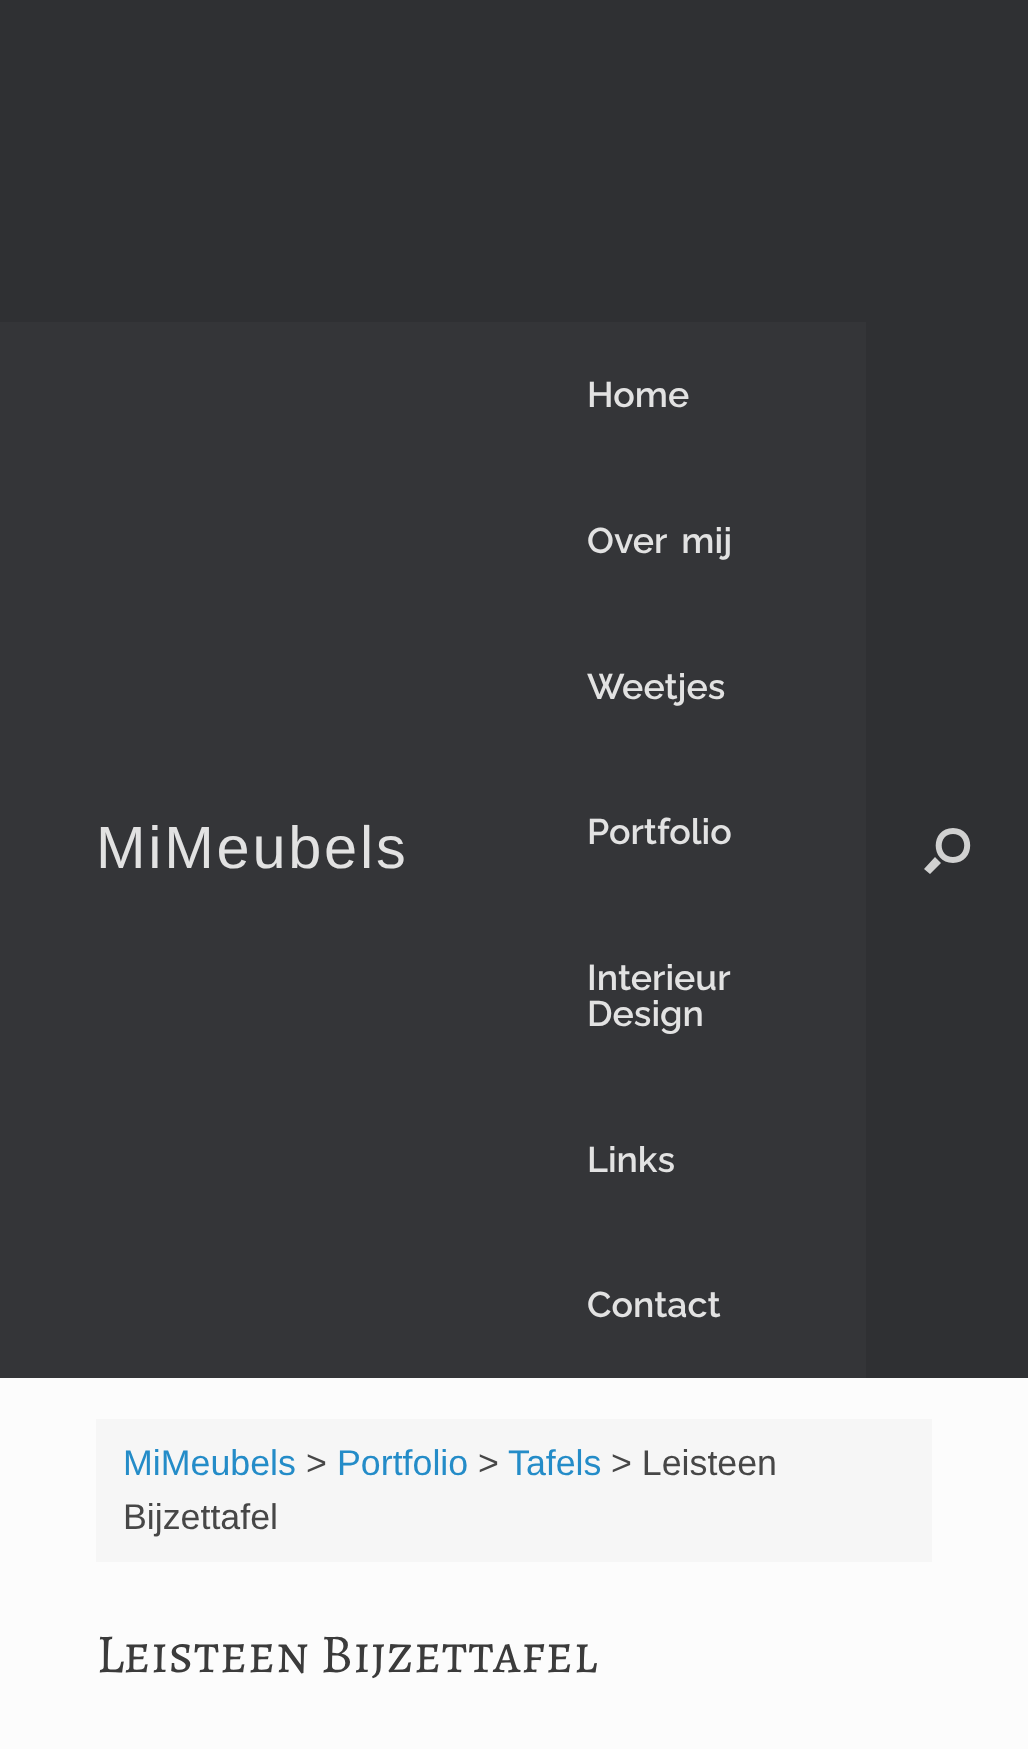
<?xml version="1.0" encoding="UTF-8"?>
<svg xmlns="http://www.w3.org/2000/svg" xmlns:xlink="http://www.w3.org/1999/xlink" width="1028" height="1749">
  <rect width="100%" height="100%" fill="#2f3033" />
  <rect y="322" width="866" height="1056" fill="#343538" />
  <path d="M 953 834 c 15 0 15 23 0 23 c -15 0 -15 -23 0 -23 z m 0 -6 c -23 0 -23 35 0 35 c 23 0 23 -35 0 -35 z m -18 29 l 6 6 l -11 11 l -6 -5 z" fill="#d1d1d1" />
  <rect y="1378" width="1028" height="371" fill="#fcfcfc" />
  <rect x="96" y="1419" width="836" height="143" fill="#f6f6f6" />
  <text x="96" y="868" style="font-family: Liberation Sans; font-size: 59.5px; letter-spacing: 2.75px; fill: #e2e2e2">MiMeubels</text>
  <text x="587" y="407" style="font-family: Raleway; font-size: 35.75px; font-weight: 600; fill: #e2e2e2">Home</text>
  <text x="587" y="553" word-spacing="6" style="font-family: Raleway; font-size: 35.75px; font-weight: 600; fill: #e2e2e2">Over mij</text>
  <text x="587" y="699" style="font-family: Raleway; font-size: 35.75px; font-weight: 600; fill: #e2e2e2">Weetjes</text>
  <text x="587" y="844" style="font-family: Raleway; font-size: 35.75px; font-weight: 600; fill: #e2e2e2">Portfolio</text>
  <text x="587" y="990" style="font-family: Raleway; font-size: 35.75px; font-weight: 600; fill: #e2e2e2">Interieur</text>
  <text x="587" y="1026" style="font-family: Raleway; font-size: 35.75px; font-weight: 600; fill: #e2e2e2">Design</text>
  <text x="587" y="1172" style="font-family: Raleway; font-size: 35.75px; font-weight: 600; fill: #e2e2e2">Links</text>
  <text x="587" y="1317" style="font-family: Raleway; font-size: 35.75px; font-weight: 600; fill: #e2e2e2">Contact</text>
  <text x="123" y="1475" style="font-family: Liberation Sans; font-size: 35.75px; fill: #248cc8">MiMeubels</text>
  <text x="306" y="1475" style="font-family: Liberation Sans; font-size: 35.75px; fill: #474747">&gt;</text>
  <text x="337" y="1475" style="font-family: Liberation Sans; font-size: 35.75px; fill: #248cc8">Portfolio</text>
  <text x="478" y="1475" style="font-family: Liberation Sans; font-size: 35.75px; fill: #474747">&gt;</text>
  <text x="508" y="1475" style="font-family: Liberation Sans; font-size: 35.75px; fill: #248cc8">Tafels</text>
  <text x="611" y="1475" style="font-family: Liberation Sans; font-size: 35.75px; fill: #474747">&gt; Leisteen</text>
  <text x="123" y="1529" style="font-family: Liberation Sans; font-size: 35.75px; fill: #474747">Bijzettafel</text>
  <text x="96" y="1672" style="font-family: Alegreya SC; font-size: 55px; fill: #3b3b3b">Leisteen Bijzettafel</text>
</svg>
